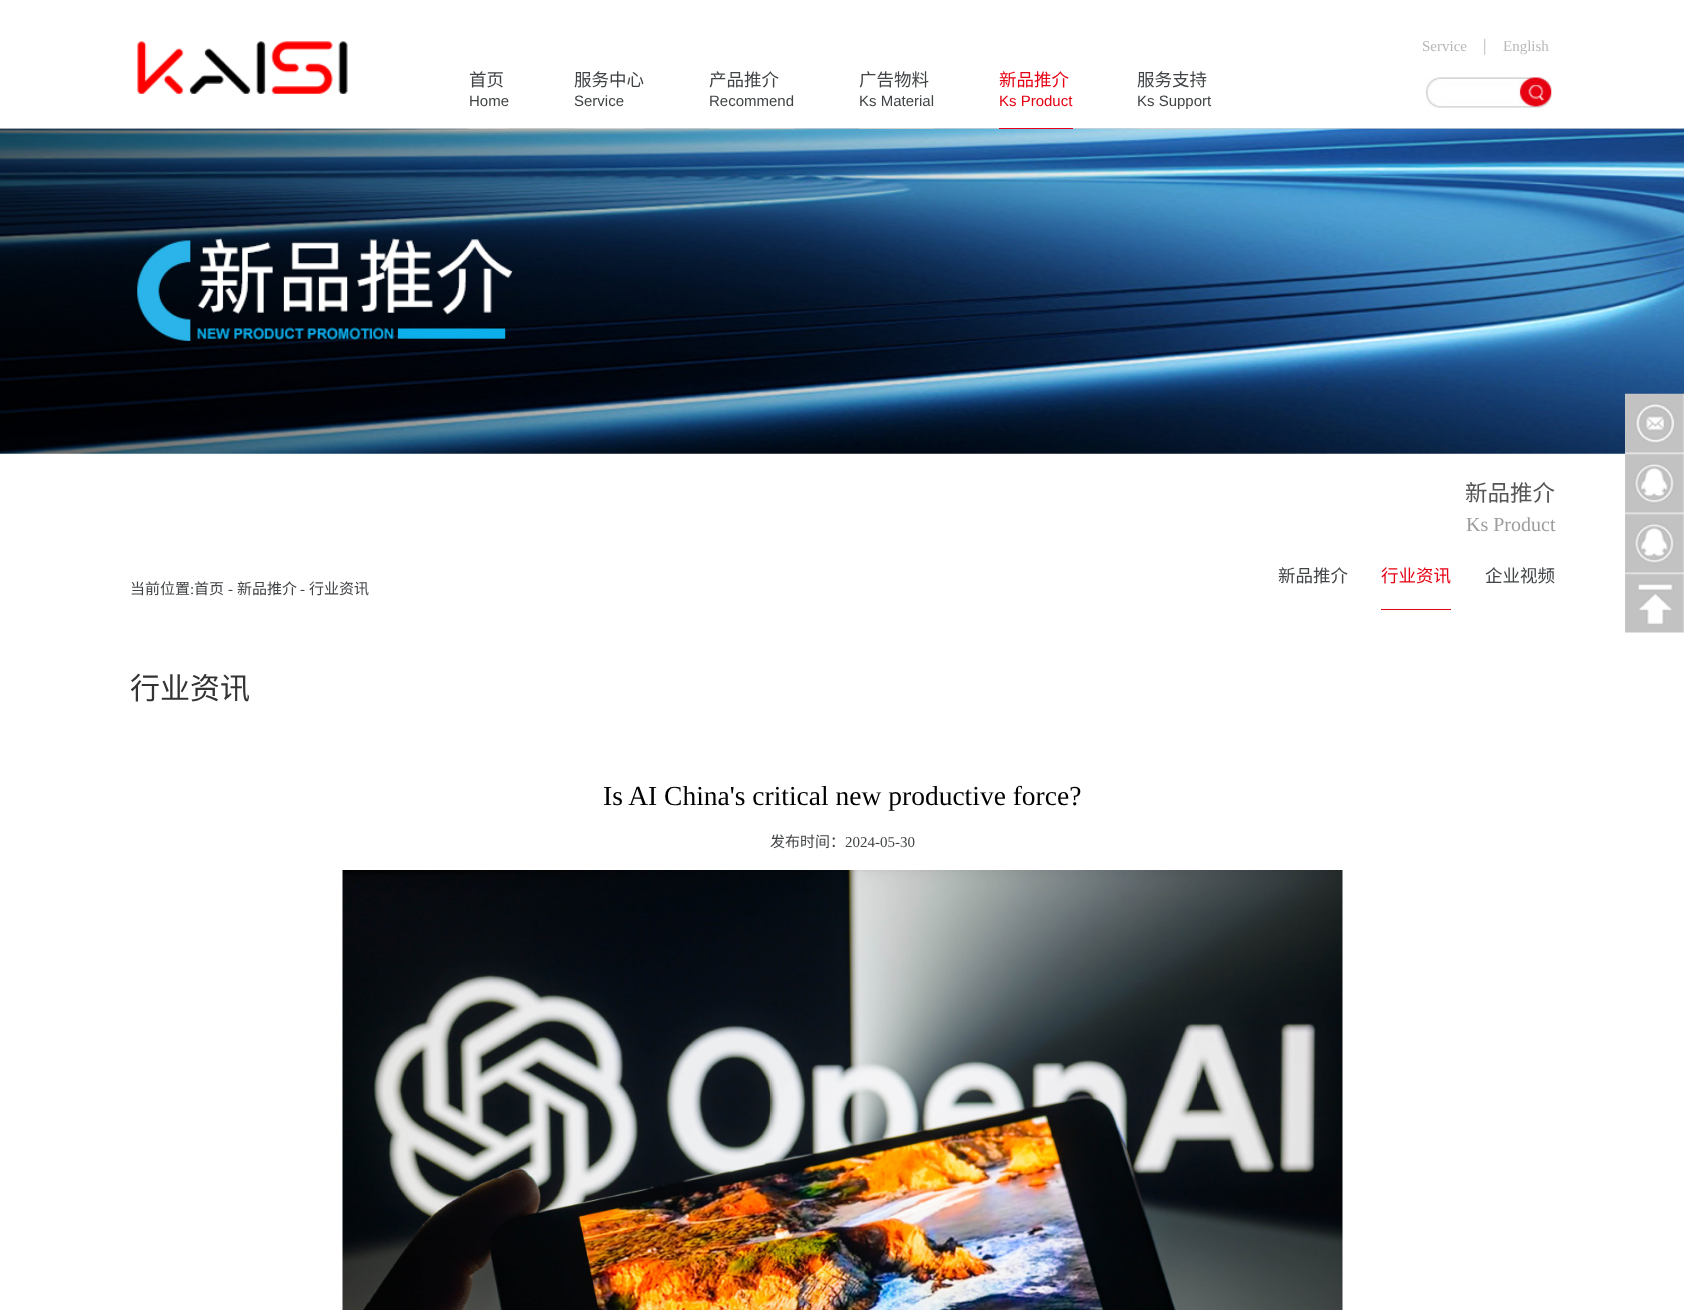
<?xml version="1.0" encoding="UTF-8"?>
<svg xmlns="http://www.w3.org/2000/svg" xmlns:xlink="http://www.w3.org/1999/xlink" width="1684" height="1310">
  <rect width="100%" height="100%" fill="#ffffff" />
  <rect y="128" width="1684" height="1" fill="#d2d2d2" />
  <image x="137" y="41" width="211" height="53" xlink:href="image1.png" />
  <image x="0" y="128" width="1684" height="326" xlink:href="image3.png" />
  <rect x="469" y="128" width="40" height="1" fill="#d2d2d2" />
  <rect x="574" y="128" width="70" height="1" fill="#d2d2d2" />
  <rect x="709" y="128" width="85" height="1" fill="#d2d2d2" />
  <rect x="859" y="128" width="75" height="1" fill="#d2d2d2" />
  <rect x="999" y="128" width="74" height="1" fill="#e70018" />
  <rect x="1138" y="128" width="73" height="1" fill="#d2d2d2" />
  <image x="1426" y="77" width="126" height="31" xlink:href="image2.png" />
  <rect x="1381" y="609" width="70" height="1" fill="#e60013" />
  <image x="342" y="870" width="1001" height="440" xlink:href="image4.png" />
  <image x="1625" y="393" width="59" height="240" xlink:href="image5.png" />
  <text x="469" y="86" style="font-family: Noto Sans CJK SC; font-size: 17.5px; fill: #414446">首页</text>
  <text x="469" y="106" style="font-family: Liberation Sans; font-size: 15px; fill: #414446">Home</text>
  <text x="574" y="86" style="font-family: Noto Sans CJK SC; font-size: 17.5px; fill: #414446">服务中心</text>
  <text x="574" y="106" style="font-family: Liberation Sans; font-size: 15px; fill: #414446">Service</text>
  <text x="709" y="86" style="font-family: Noto Sans CJK SC; font-size: 17.5px; fill: #414446">产品推介</text>
  <text x="709" y="106" style="font-family: Liberation Sans; font-size: 15px; fill: #414446">Recommend</text>
  <text x="859" y="86" style="font-family: Noto Sans CJK SC; font-size: 17.5px; fill: #414446">广告物料</text>
  <text x="859" y="106" style="font-family: Liberation Sans; font-size: 15px; fill: #414446">Ks Material</text>
  <text x="999" y="86" style="font-family: Noto Sans CJK SC; font-size: 17.5px; fill: #e60013">新品推介</text>
  <text x="999" y="106" style="font-family: Liberation Sans; font-size: 15px; fill: #e60013">Ks Product</text>
  <text x="1137" y="86" style="font-family: Noto Sans CJK SC; font-size: 17.5px; fill: #414446">服务支持</text>
  <text x="1137" y="106" style="font-family: Liberation Sans; font-size: 15px; fill: #414446">Ks Support</text>
  <text x="1422" y="51" style="font-family: Liberation Serif; font-size: 15px; fill: #b8b8b8">Service</text>
  <text x="1483" y="51" style="font-family: Liberation Serif; font-size: 17.5px; fill: #b8b8b8">|</text>
  <text x="1503" y="51" style="font-family: Liberation Serif; font-size: 15px; fill: #b8b8b8">English</text>
  <text x="1465" y="501" style="font-family: Noto Sans CJK SC; font-size: 22.5px; fill: #555555">新品推介</text>
  <text x="1466" y="531" style="font-family: Liberation Serif; font-size: 20px; fill: #9d9d9d">Ks Product</text>
  <text x="1278" y="582" style="font-family: Noto Sans CJK SC; font-size: 17.5px; fill: #414446">新品推介</text>
  <text x="1381" y="582" style="font-family: Noto Sans CJK SC; font-size: 17.5px; fill: #e60013">行业资讯</text>
  <text x="1485" y="582" style="font-family: Noto Sans CJK SC; font-size: 17.5px; fill: #414446">企业视频</text>
  <text x="130" y="594" style="font-family: Noto Sans CJK SC; font-size: 15px; fill: #414446">当前位置</text>
  <text x="190" y="594" style="font-family: Liberation Serif; font-size: 15px; fill: #414446">:</text>
  <text x="194" y="594" style="font-family: Noto Sans CJK SC; font-size: 15px; fill: #414446">首页</text>
  <text x="228" y="594" style="font-family: Liberation Serif; font-size: 15px; fill: #414446">-</text>
  <text x="237" y="594" style="font-family: Noto Sans CJK SC; font-size: 15px; fill: #414446">新品推介</text>
  <text x="300" y="594" style="font-family: Liberation Serif; font-size: 15px; fill: #414446">-</text>
  <text x="309" y="594" style="font-family: Noto Sans CJK SC; font-size: 15px; fill: #414446">行业资讯</text>
  <text x="130" y="699" style="font-family: Noto Sans CJK SC; font-size: 30px; fill: #333333">行业资讯</text>
  <text x="603" y="805" style="font-family: Liberation Serif; font-size: 27.5px; fill: #000000">Is AI China's critical new productive force?</text>
  <text x="770" y="847" style="font-family: Noto Sans CJK SC; font-size: 15px; fill: #414446">发布时间：</text>
  <text x="845" y="847" style="font-family: Liberation Serif; font-size: 15px; fill: #414446">2024-05-30</text>
</svg>
